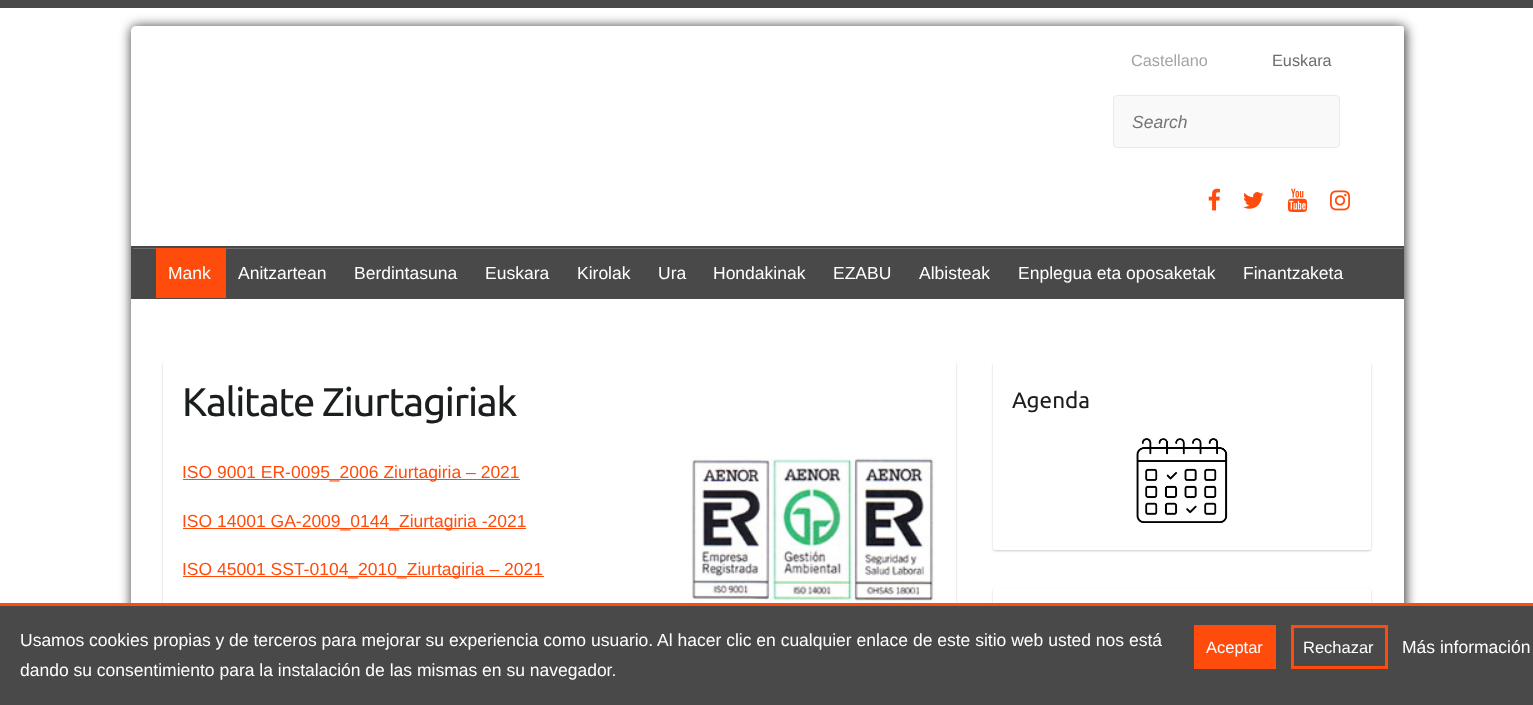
<?xml version="1.0" encoding="UTF-8"?>
<svg xmlns="http://www.w3.org/2000/svg" xmlns:xlink="http://www.w3.org/1999/xlink" width="1533" height="705">
  <rect width="100%" height="100%" fill="#ffffff" />
  <rect width="1533" height="8" fill="#494949" />
  <rect x="131" y="26" width="1275" height="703" rx="6" fill="#000000" fill-opacity="0.75" filter="blur(6px)" />
  <rect x="131" y="26" width="1273" height="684" rx="5" fill="#ffffff" />
  <rect x="1094" y="26" width="310" height="50" rx="2.5" fill="#ffffff" />
  <rect x="1113.5" y="95.5" width="226" height="52" rx="3.5" fill="#f9f9f9" stroke="#eaeaea" />
  <image x="1208" y="188" width="12" height="23" xlink:href="image1.png" />
  <image x="1243" y="192" width="21" height="17" xlink:href="image2.png" />
  <image x="1287" y="188" width="21" height="25" xlink:href="image3.png" />
  <image x="1330" y="190" width="20" height="21" xlink:href="image4.png" />
  <rect x="131" y="246" width="1273" height="53" fill="#494949" />
  <rect x="133" y="248" width="1270" height="1" fill="#6d6d6d" />
  <rect x="156" y="248" width="70" height="50" fill="#ff4c0d" />
  <rect x="163" y="363" width="793" height="286" fill="#000000" fill-opacity="0.2" filter="blur(1px)" />
  <rect x="163" y="361" width="793" height="242" fill="#ffffff" />
  <rect x="183" y="479" width="337" height="1" fill="#ff4c0d" />
  <image x="690" y="456" width="246" height="147" xlink:href="image5.png" />
  <rect x="183" y="528" width="343" height="1" fill="#ff4c0d" />
  <rect x="183" y="576" width="361" height="1" fill="#ff4c0d" />
  <rect x="993" y="363" width="378" height="188" rx="2.5" fill="#000000" fill-opacity="0.2" filter="blur(1px)" />
  <rect x="993" y="361" width="378" height="189" rx="2.5" fill="#ffffff" />
  <image x="1136" y="438" width="92" height="85" xlink:href="image6.png" />
  <rect x="993" y="589" width="378" height="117" rx="2.5" fill="#000000" fill-opacity="0.2" filter="blur(1px)" />
  <rect x="993" y="588" width="378" height="117" rx="2.5" fill="#ffffff" />
  <rect y="606" width="1533" height="99" fill="#494949" />
  <rect y="603" width="1533" height="3" fill="#ff4c0d" />
  <rect x="1194" y="625" width="82" height="44" fill="#ff4c0d" />
  <rect x="1292.5" y="626.5" width="94" height="41" fill="none" stroke="#ff4c0d" stroke-width="3" />
  <text x="1131" y="66" style="font-family: Liberation Sans; font-size: 16.25px; fill: #a4a4a4">Castellano</text>
  <text x="1272" y="66" style="font-family: Liberation Sans; font-size: 16.25px; fill: #6d6d6d">Euskara</text>
  <text x="1132" y="128" style="font-family: Liberation Sans; font-size: 17.5px; font-style: italic; fill: #757575">Search</text>
  <text x="168" y="279" style="font-family: Liberation Sans; font-size: 17.5px; fill: #ffffff">Mank</text>
  <text x="238" y="279" style="font-family: Liberation Sans; font-size: 17.5px; fill: #ffffff">Anitzartean</text>
  <text x="354" y="279" style="font-family: Liberation Sans; font-size: 17.5px; fill: #ffffff">Berdintasuna</text>
  <text x="485" y="279" style="font-family: Liberation Sans; font-size: 17.5px; fill: #ffffff">Euskara</text>
  <text x="577" y="279" style="font-family: Liberation Sans; font-size: 17.5px; fill: #ffffff">Kirolak</text>
  <text x="658" y="279" style="font-family: Liberation Sans; font-size: 17.5px; fill: #ffffff">Ura</text>
  <text x="713" y="279" style="font-family: Liberation Sans; font-size: 17.5px; fill: #ffffff">Hondakinak</text>
  <text x="833" y="279" style="font-family: Liberation Sans; font-size: 17.5px; fill: #ffffff">EZABU</text>
  <text x="919" y="279" style="font-family: Liberation Sans; font-size: 17.5px; fill: #ffffff">Albisteak</text>
  <text x="1018" y="279" style="font-family: Liberation Sans; font-size: 17.5px; fill: #ffffff">Enplegua eta oposaketak</text>
  <text x="1243" y="279" style="font-family: Liberation Sans; font-size: 17.5px; fill: #ffffff">Finantzaketa</text>
  <text x="182" y="416" style="font-family: Ubuntu; font-size: 40px; letter-spacing: -1.25px; fill: #1b1e1f">Kalitate Ziurtagiriak</text>
  <text x="182" y="478" style="font-family: Liberation Sans; font-size: 17.5px; fill: #ff4c0d">ISO 9001 ER-0095_2006 Ziurtagiria – 2021</text>
  <text x="182" y="527" style="font-family: Liberation Sans; font-size: 17.5px; fill: #ff4c0d">ISO 14001 GA-2009_0144_Ziurtagiria -2021</text>
  <text x="182" y="575" style="font-family: Liberation Sans; font-size: 17.5px; fill: #ff4c0d">ISO 45001 SST-0104_2010_Ziurtagiria – 2021</text>
  <text x="1012" y="408" style="font-family: Ubuntu; font-size: 22.5px; fill: #1b1e1f">Agenda</text>
  <text x="20" y="646" style="font-family: Liberation Sans; font-size: 17.5px; fill: #ffffff">Usamos cookies propias y de terceros para mejorar su experiencia como usuario. Al hacer clic en cualquier enlace de este sitio web usted nos está</text>
  <text x="20" y="676" style="font-family: Liberation Sans; font-size: 17.5px; fill: #ffffff">dando su consentimiento para la instalación de las mismas en su navegador.</text>
  <text x="1206" y="653" style="font-family: Liberation Sans; font-size: 16.5px; fill: #ffffff">Aceptar</text>
  <text x="1303" y="653" style="font-family: Liberation Sans; font-size: 16.5px; fill: #ffffff">Rechazar</text>
  <text x="1402" y="653" style="font-family: Liberation Sans; font-size: 17.5px; fill: #ffffff">Más información</text>
</svg>
